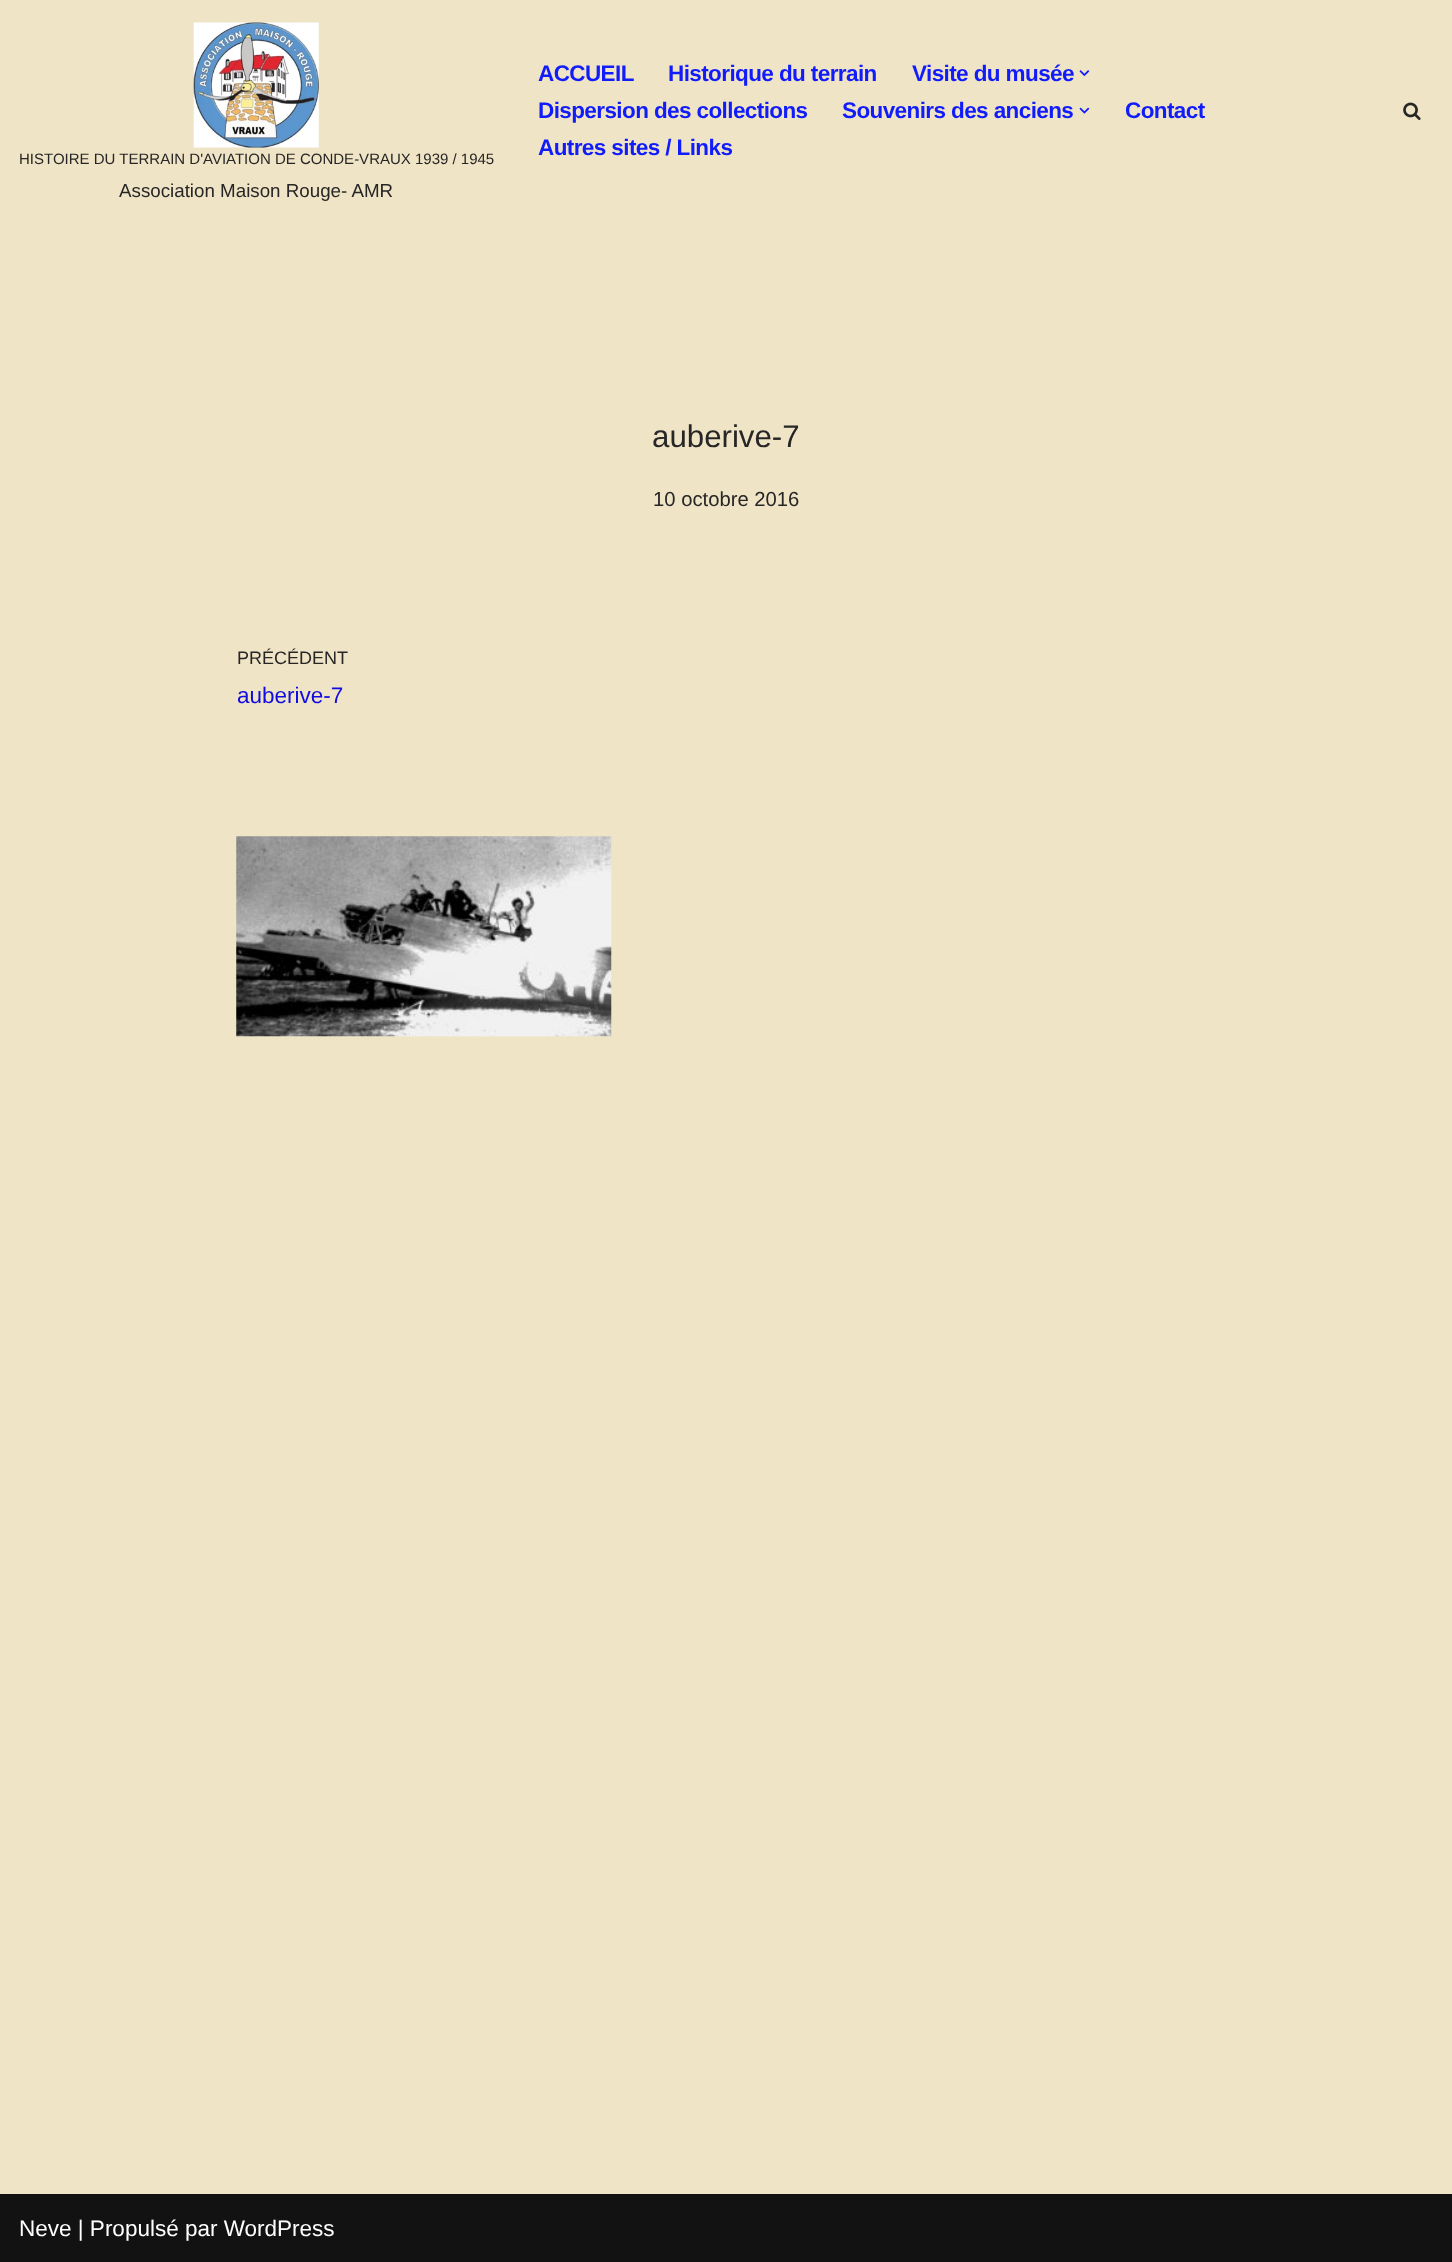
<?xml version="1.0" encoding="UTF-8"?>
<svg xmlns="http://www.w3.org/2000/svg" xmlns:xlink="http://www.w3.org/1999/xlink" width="1452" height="2262">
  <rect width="100%" height="100%" fill="#f0e4c7" />
  <image x="1079" y="70" width="11" height="6" xlink:href="image1.png" />
  <image x="1079" y="107" width="11" height="7" xlink:href="image2.png" />
  <image x="1403" y="102" width="18" height="18" xlink:href="image3.png" />
  <image x="193" y="22" width="126" height="126" xlink:href="image4.png" />
  <image x="236" y="836" width="376" height="201" xlink:href="image5.png" />
  <rect y="2194" width="1452" height="68" fill="#121212" />
  <text x="538" y="81" style="font-family: Liberation Sans; font-size: 22.5px; font-weight: bold; letter-spacing: -0.6px; fill: #111cfa">ACCUEIL</text>
  <text x="668" y="81" style="font-family: Liberation Sans; font-size: 22.5px; font-weight: bold; letter-spacing: -0.6px; fill: #111cfa">Historique du terrain</text>
  <text x="912" y="81" style="font-family: Liberation Sans; font-size: 22.5px; font-weight: bold; letter-spacing: -0.6px; fill: #111cfa">Visite du musée</text>
  <text x="538" y="118" style="font-family: Liberation Sans; font-size: 22.5px; font-weight: bold; letter-spacing: -0.6px; fill: #111cfa">Dispersion des collections</text>
  <text x="842" y="118" style="font-family: Liberation Sans; font-size: 22.5px; font-weight: bold; letter-spacing: -0.6px; fill: #111cfa">Souvenirs des anciens</text>
  <text x="1125" y="118" style="font-family: Liberation Sans; font-size: 22.5px; font-weight: bold; letter-spacing: -0.6px; fill: #111cfa">Contact</text>
  <text x="538" y="155" style="font-family: Liberation Sans; font-size: 22.5px; font-weight: bold; letter-spacing: -0.6px; fill: #111cfa">Autres sites / Links</text>
  <text x="19" y="164" style="font-family: Liberation Sans; font-size: 15px; fill: #272626">HISTOIRE DU TERRAIN D'AVIATION DE CONDE-VRAUX 1939 / 1945</text>
  <text x="119" y="197" style="font-family: Liberation Sans; font-size: 18.75px; fill: #272626">Association Maison Rouge- AMR</text>
  <text x="652" y="447" style="font-family: Liberation Sans; font-size: 31.25px; fill: #272626">auberive-7</text>
  <text x="653" y="506" style="font-family: Liberation Sans; font-size: 20.25px; fill: #272626">10 octobre 2016</text>
  <text x="237" y="664" style="font-family: Liberation Sans; font-size: 18px; fill: #272626">PRÉCÉDENT</text>
  <text x="237" y="703" style="font-family: Liberation Sans; font-size: 22.5px; fill: #100be0">auberive-7</text>
  <text x="19" y="2236" style="font-family: Liberation Sans; font-size: 22.5px; fill: #ffffff">Neve | Propulsé par WordPress</text>
</svg>
